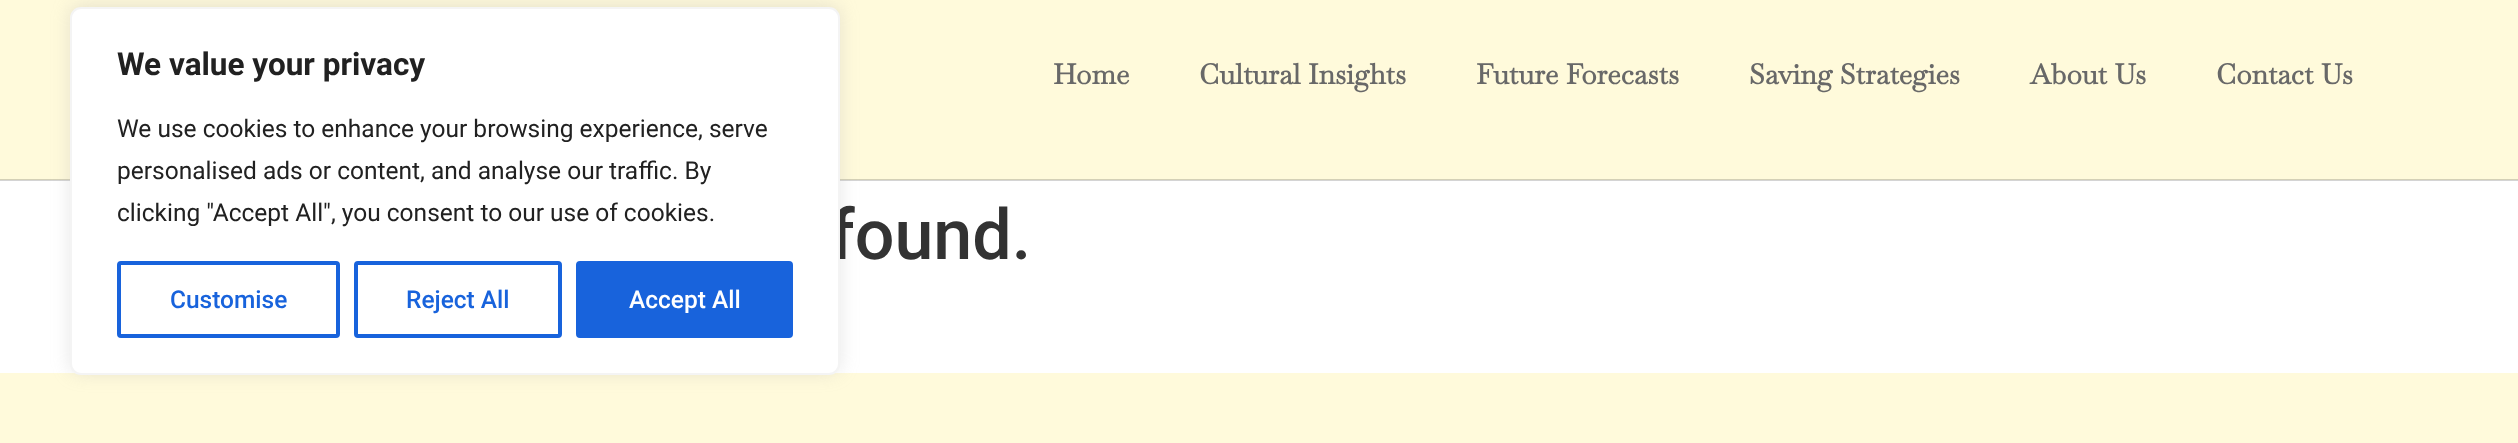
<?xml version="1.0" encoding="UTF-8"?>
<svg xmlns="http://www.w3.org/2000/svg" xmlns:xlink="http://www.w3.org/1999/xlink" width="2518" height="443">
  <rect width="100%" height="100%" fill="#ffffff" />
  <rect y="180" width="2518" height="1" fill="#d4d4d4" />
  <rect width="2518" height="179" fill="#fffadb" />
  <rect y="179" width="2518" height="1" fill="#d4d0b6" />
  <rect y="373" width="2518" height="70" fill="#fffadb" />
  <rect x="70" y="5" width="770" height="368" rx="11" fill="#acabab" fill-opacity="0.3" filter="blur(9px)" />
  <text x="1053" y="84" style="font-family: Baskervville; font-size: 28px; font-weight: bold; fill: #686868">Home</text>
  <text x="1199" y="84" style="font-family: Baskervville; font-size: 28px; font-weight: bold; fill: #686868">Cultural Insights</text>
  <text x="1476" y="84" style="font-family: Baskervville; font-size: 28px; font-weight: bold; fill: #686868">Future Forecasts</text>
  <text x="1749" y="84" style="font-family: Baskervville; font-size: 28px; font-weight: bold; fill: #686868">Saving Strategies</text>
  <text x="2030" y="84" style="font-family: Baskervville; font-size: 28px; font-weight: bold; fill: #686868">About Us</text>
  <text x="2216" y="84" style="font-family: Baskervville; font-size: 28px; font-weight: bold; fill: #686868">Contact Us</text>
  <text x="830" y="259" style="font-family: Roboto; font-size: 70px; font-weight: 500; fill: #333333">found.</text>
  <rect x="71" y="8" width="768" height="366" rx="10" fill="#ffffff" stroke="#f4f4f4" stroke-width="2" />
  <rect x="578" y="263" width="213" height="73" rx="2" fill="#1863dc" stroke="#1863dc" stroke-width="4" />
  <text x="629" y="308" style="font-family: Roboto; font-size: 24.5px; font-weight: 500; fill: #ffffff">Accept All</text>
  <rect x="356" y="263" width="204" height="73" rx="2" fill="none" stroke="#1863dc" stroke-width="4" />
  <text x="406" y="308" style="font-family: Roboto; font-size: 24.5px; font-weight: 500; fill: #1863dc">Reject All</text>
  <rect x="119" y="263" width="219" height="73" rx="2" fill="none" stroke="#1863dc" stroke-width="4" />
  <text x="170" y="308" style="font-family: Roboto; font-size: 24.5px; font-weight: 500; fill: #1863dc">Customise</text>
  <text x="117" y="221" style="font-family: Roboto; font-size: 24.5px; fill: #212121">clicking "Accept All", you consent to our use of cookies.</text>
  <text x="117" y="179" style="font-family: Roboto; font-size: 24.5px; fill: #212121">personalised ads or content, and analyse our traffic. By</text>
  <text x="117" y="137" style="font-family: Roboto; font-size: 24.5px; fill: #212121">We use cookies to enhance your browsing experience, serve</text>
  <text x="117" y="75" style="font-family: Roboto; font-size: 31.5px; font-weight: bold; fill: #212121">We value your privacy</text>
</svg>
